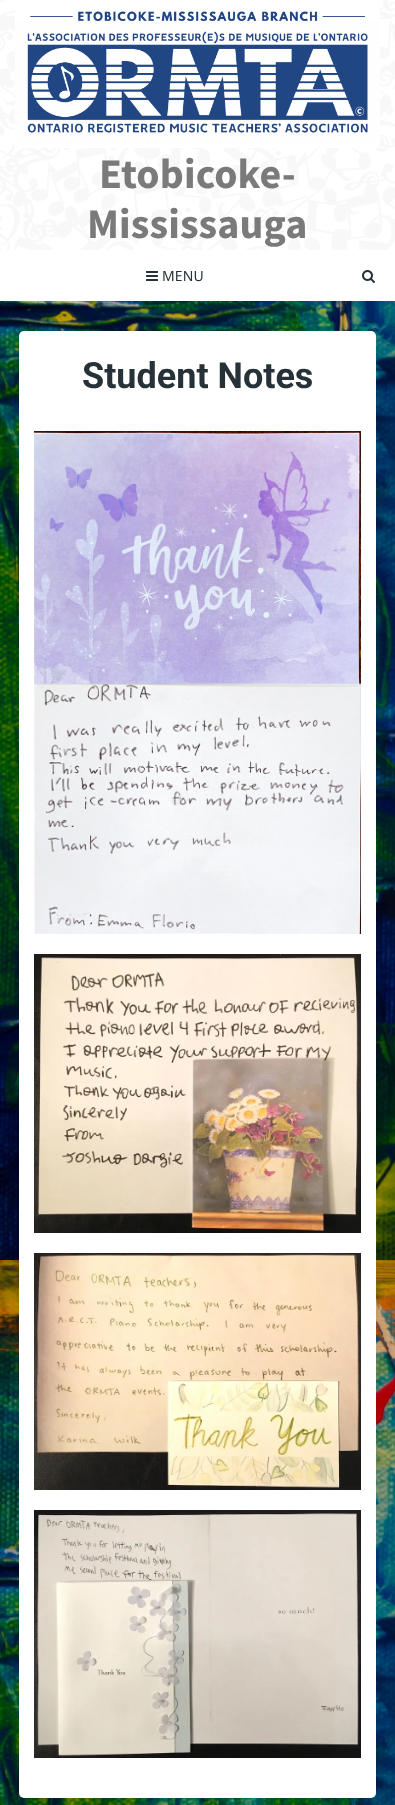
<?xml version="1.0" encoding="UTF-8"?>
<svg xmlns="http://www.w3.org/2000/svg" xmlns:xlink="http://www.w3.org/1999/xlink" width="395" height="1805">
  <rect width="100%" height="100%" fill="#ffffff" />
  <image x="0" y="301" width="395" height="1504" xlink:href="image1.png" />
  <image x="0" y="0" width="395" height="250" xlink:href="image2.png" />
  <image x="15" y="0" width="365" height="148" xlink:href="image3.png" />
  <image x="146" y="271" width="12" height="10" xlink:href="image4.png" />
  <image x="362" y="270" width="13" height="13" xlink:href="image5.png" />
  <rect x="19" y="331" width="357" height="1467" rx="5" fill="#ffffff" />
  <image x="34" y="431" width="327" height="503" xlink:href="image6.png" />
  <image x="34" y="954" width="327" height="279" xlink:href="image7.png" />
  <image x="34" y="1253" width="327" height="237" xlink:href="image8.png" />
  <image x="34" y="1510" width="327" height="248" xlink:href="image9.png" />
  <text x="99" y="188" style="font-family: Source Sans Pro; font-size: 42px; font-weight: bold; letter-spacing: 0.1px; fill: #7a7a7a">Etobicoke-</text>
  <text x="87" y="238" style="font-family: Source Sans Pro; font-size: 42px; font-weight: bold; letter-spacing: 0.1px; fill: #7a7a7a">Mississauga</text>
  <text x="162" y="281" style="font-family: Noto Sans; font-size: 14px; letter-spacing: 0.1px; fill: #263238">MENU</text>
  <text x="82" y="388" style="font-family: Roboto; font-size: 36px; font-weight: bold; fill: #263238">Student Notes</text>
</svg>
